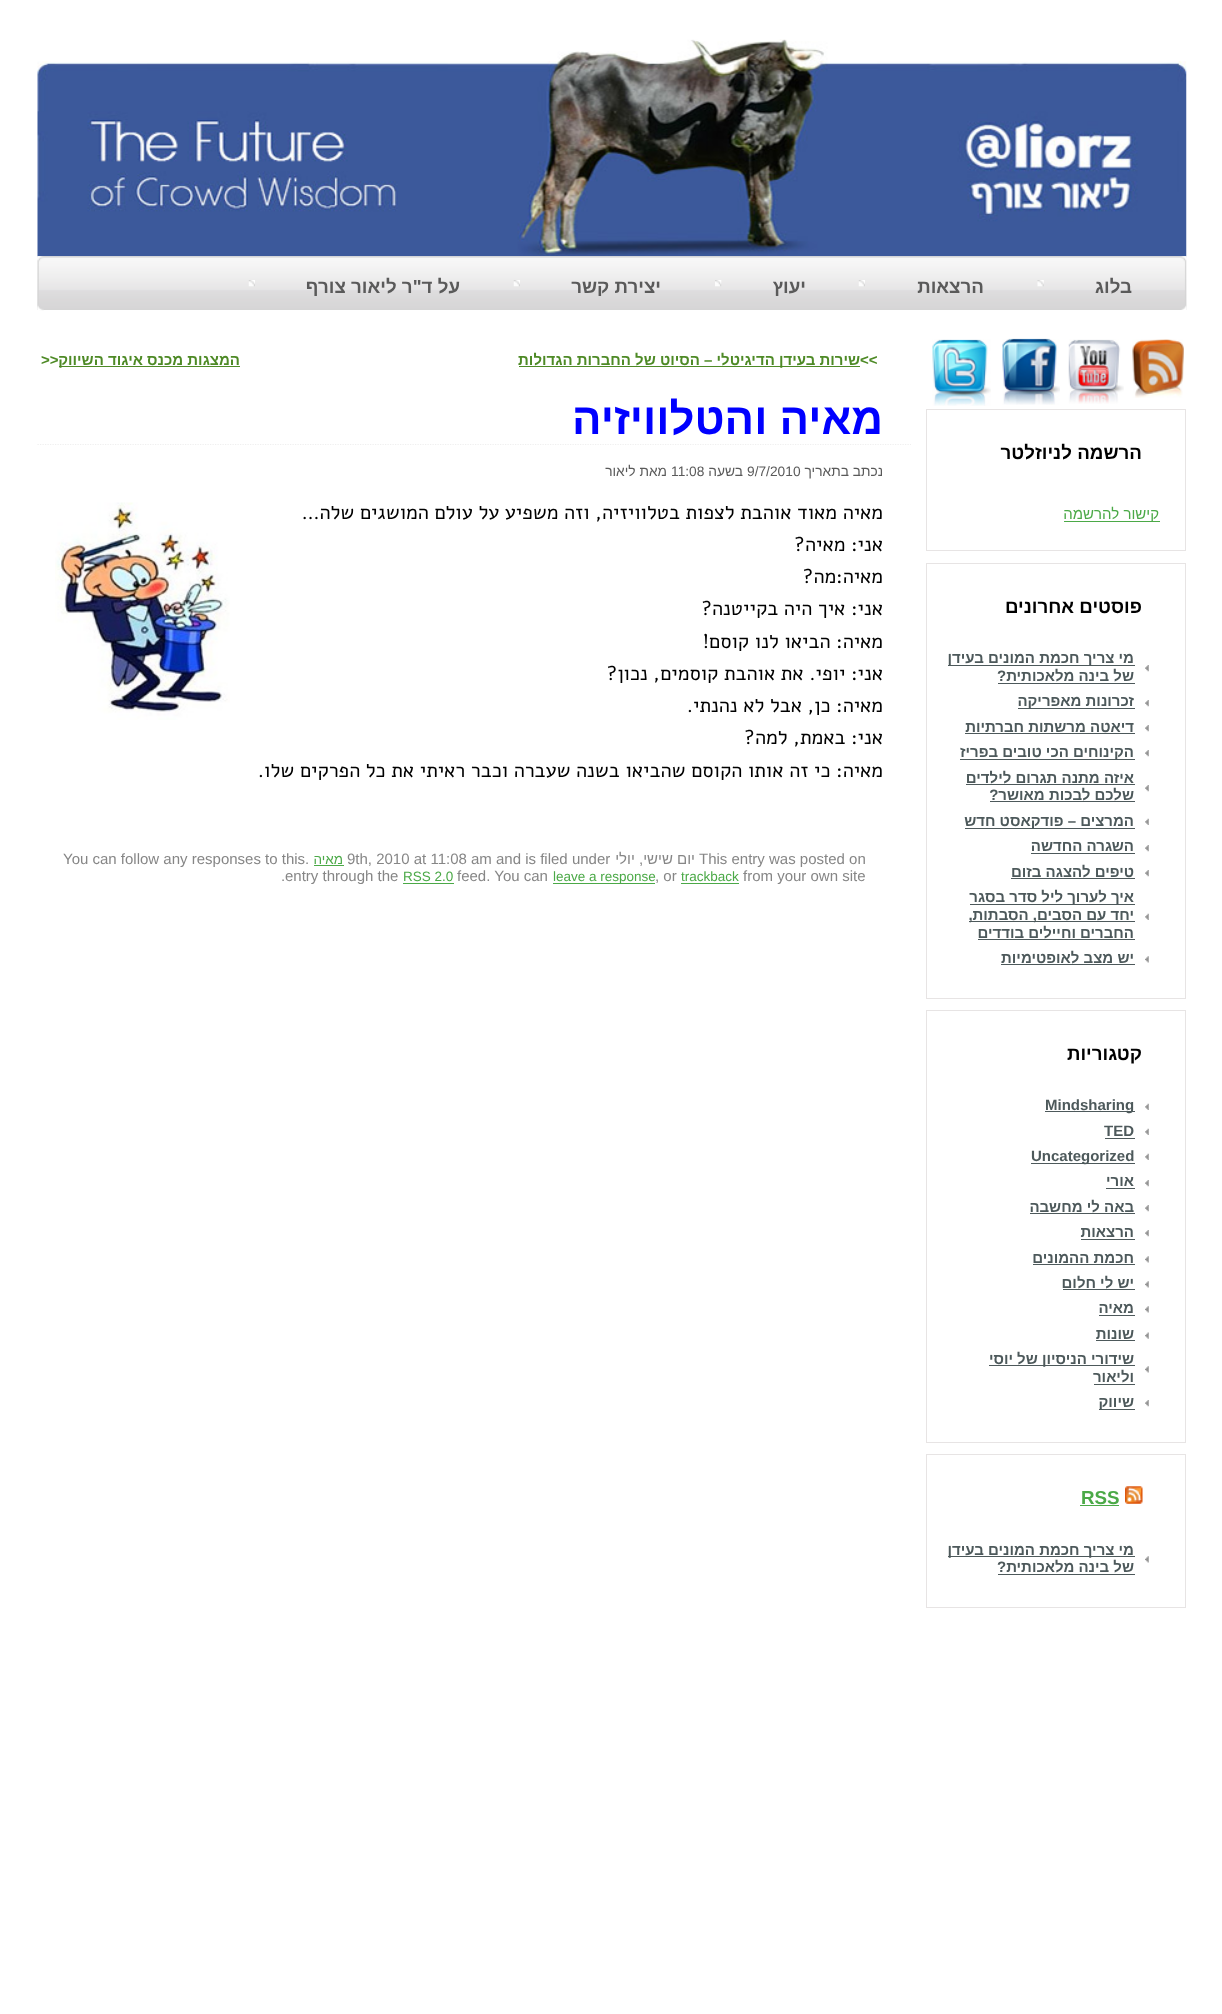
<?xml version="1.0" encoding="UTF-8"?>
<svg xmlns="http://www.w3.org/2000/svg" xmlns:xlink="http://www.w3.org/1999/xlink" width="1222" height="2014">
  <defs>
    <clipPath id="clip1"><rect x="773" y="275" width="32" height="21" /></clipPath>
    <clipPath id="clip2"><rect x="571" y="275" width="90" height="21" /></clipPath>
    <clipPath id="clip3"><rect x="306" y="275" width="154" height="21" /></clipPath>
  </defs>
  <rect width="100%" height="100%" fill="#ffffff" />
  <image x="37" y="39" width="1150" height="218" xlink:href="image1.png" />
  <image x="37" y="256" width="1150" height="54" xlink:href="image2.png" />
  <image x="37" y="256" width="7" height="55" xlink:href="image3.png" />
  <image x="1181" y="256" width="6" height="54" xlink:href="image4.png" />
  <image x="1037" y="280" width="7" height="7" xlink:href="image5.png" />
  <image x="858" y="280" width="7" height="7" xlink:href="image6.png" />
  <image x="715" y="280" width="7" height="7" xlink:href="image7.png" />
  <image x="513" y="280" width="7" height="7" xlink:href="image8.png" />
  <image x="248" y="280" width="7" height="7" xlink:href="image8.png" />
  <image x="1132" y="339" width="52" height="59" xlink:href="image9.png" />
  <image x="1068" y="339" width="56" height="65" xlink:href="image10.png" />
  <image x="1002" y="338" width="58" height="67" xlink:href="image11.png" />
  <image x="932" y="339" width="59" height="67" xlink:href="image12.png" />
  <rect x="926.5" y="409.5" width="259" height="141" fill="none" stroke="#e7e4e4" />
  <rect x="1064" y="521" width="96" height="1" fill="#4ba947" />
  <rect x="926.5" y="563.5" width="259" height="435" fill="none" stroke="#e7e4e4" />
  <image x="1145" y="665" width="4" height="7" xlink:href="image13.png" />
  <rect x="948" y="665" width="187" height="1" fill="#4d595b" />
  <rect x="998" y="683" width="137" height="1" fill="#4d595b" />
  <image x="1145" y="700" width="4" height="7" xlink:href="image13.png" />
  <rect x="1018" y="708" width="117" height="1" fill="#4d595b" />
  <image x="1145" y="725" width="4" height="7" xlink:href="image13.png" />
  <rect x="965" y="733" width="170" height="1" fill="#4d595b" />
  <image x="1145" y="750" width="4" height="7" xlink:href="image13.png" />
  <rect x="960" y="759" width="175" height="1" fill="#4d595b" />
  <image x="1145" y="785" width="4" height="7" xlink:href="image13.png" />
  <rect x="966" y="784" width="169" height="1" fill="#4d595b" />
  <rect x="990" y="801" width="145" height="1" fill="#4d595b" />
  <image x="1145" y="818" width="4" height="7" xlink:href="image14.png" />
  <rect x="965" y="828" width="170" height="1" fill="#4d595b" />
  <image x="1145" y="845" width="4" height="7" xlink:href="image13.png" />
  <rect x="1031" y="853" width="104" height="1" fill="#4d595b" />
  <image x="1145" y="870" width="4" height="7" xlink:href="image13.png" />
  <rect x="1011" y="878" width="124" height="1" fill="#4d595b" />
  <image x="1145" y="913" width="4" height="7" xlink:href="image14.png" />
  <rect x="970" y="904" width="165" height="1" fill="#4d595b" />
  <rect x="969" y="921" width="166" height="1" fill="#4d595b" />
  <rect x="978" y="939" width="157" height="1" fill="#4d595b" />
  <image x="1145" y="956" width="4" height="7" xlink:href="image15.png" />
  <rect x="1001" y="964" width="134" height="1" fill="#4d595b" />
  <rect x="926.5" y="1010.5" width="259" height="432" fill="none" stroke="#e7e4e4" />
  <image x="1145" y="1103" width="4" height="7" xlink:href="image14.png" />
  <rect x="1045" y="1111" width="90" height="1" fill="#4d595b" />
  <image x="1145" y="1128" width="4" height="7" xlink:href="image14.png" />
  <rect x="1105" y="1138" width="30" height="1" fill="#4d595b" />
  <image x="1145" y="1153" width="4" height="7" xlink:href="image14.png" />
  <rect x="1031" y="1163" width="104" height="1" fill="#4d595b" />
  <image x="1145" y="1180" width="4" height="7" xlink:href="image13.png" />
  <rect x="1106" y="1188" width="29" height="1" fill="#4d595b" />
  <image x="1145" y="1205" width="4" height="7" xlink:href="image13.png" />
  <rect x="1030" y="1213" width="105" height="1" fill="#4d595b" />
  <image x="1145" y="1230" width="4" height="7" xlink:href="image13.png" />
  <rect x="1081" y="1239" width="54" height="1" fill="#4d595b" />
  <image x="1145" y="1256" width="4" height="7" xlink:href="image15.png" />
  <rect x="1033" y="1264" width="102" height="1" fill="#4d595b" />
  <image x="1145" y="1281" width="4" height="7" xlink:href="image15.png" />
  <rect x="1063" y="1289" width="72" height="1" fill="#4d595b" />
  <image x="1145" y="1306" width="4" height="7" xlink:href="image15.png" />
  <rect x="1099" y="1315" width="36" height="1" fill="#4d595b" />
  <image x="1145" y="1332" width="4" height="7" xlink:href="image16.png" />
  <rect x="1096" y="1340" width="39" height="1" fill="#4d595b" />
  <image x="1145" y="1366" width="4" height="7" xlink:href="image15.png" />
  <rect x="989" y="1365" width="146" height="1" fill="#4d595b" />
  <rect x="1094" y="1384" width="41" height="1" fill="#4d595b" />
  <image x="1145" y="1400" width="4" height="7" xlink:href="image13.png" />
  <rect x="1099" y="1409" width="36" height="1" fill="#4d595b" />
  <rect x="926.5" y="1454.5" width="259" height="153" fill="none" stroke="#e7e4e4" />
  <image x="1125" y="1486" width="18" height="18" xlink:href="image17.png" />
  <rect x="1080" y="1505" width="39" height="1" fill="#4ba947" />
  <image x="1145" y="1556" width="4" height="7" xlink:href="image15.png" />
  <rect x="948" y="1556" width="187" height="1" fill="#4d595b" />
  <rect x="998" y="1574" width="137" height="1" fill="#4d595b" />
  <rect x="519" y="366" width="341" height="1" fill="#4e8a26" />
  <rect x="59" y="366" width="181" height="1" fill="#4e8a26" />
  <path d="M 37.5 444.5 h 873.5" fill="none" stroke="#efefef" stroke-width="1.2" stroke-dasharray="1.25 1.25" />
  <image x="55" y="502" width="175" height="218" xlink:href="image18.png" />
  <rect x="314" y="865" width="30" height="1" fill="#4ba947" />
  <rect x="681" y="883" width="58" height="1" fill="#4ba947" />
  <rect x="553" y="883" width="102" height="1" fill="#4ba947" />
  <rect x="403" y="883" width="51" height="1" fill="#4ba947" />
  <text x="1132" y="293" style="font-family: Liberation Sans; font-size: 18.75px; font-weight: bold; direction: rtl; fill: #5a5a5a">בלוג</text>
  <text x="984" y="293" style="font-family: Liberation Sans; font-size: 18.75px; font-weight: bold; direction: rtl; fill: #5a5a5a">הרצאות</text>
  <g clip-path="url(#clip1)">
    <text x="806" y="293" style="font-family: Liberation Sans; font-size: 18.75px; font-weight: bold; direction: rtl; fill: #5a5a5a">יעוץ</text>
  </g>
  <g clip-path="url(#clip2)">
    <text x="661" y="293" style="font-family: Liberation Sans; font-size: 18.75px; font-weight: bold; direction: rtl; fill: #5a5a5a">יצירת קשר</text>
  </g>
  <g clip-path="url(#clip3)">
    <text x="460" y="293" style="font-family: Liberation Sans; font-size: 18.75px; font-weight: bold; direction: rtl; fill: #5a5a5a">על ד"ר ליאור צורף</text>
  </g>
  <text x="1142" y="459" style="font-family: Liberation Sans; font-size: 18.75px; font-weight: bold; direction: rtl; fill: #000000">הרשמה לניוזלטר</text>
  <text x="1159" y="519" style="font-family: Liberation Sans; font-size: 15px; direction: rtl; fill: #4ba947">קישור להרשמה</text>
  <text x="1142" y="613" style="font-family: Liberation Sans; font-size: 18.75px; font-weight: bold; direction: rtl; fill: #000000">פוסטים אחרונים</text>
  <text x="1134" y="663" style="font-family: Liberation Sans; font-size: 15px; font-weight: bold; direction: rtl; fill: #4d595b">מי צריך חכמת המונים בעידן</text>
  <text x="1134" y="681" style="font-family: Liberation Sans; font-size: 15px; font-weight: bold; direction: rtl; fill: #4d595b">של בינה מלאכותית?</text>
  <text x="1134" y="706" style="font-family: Liberation Sans; font-size: 15px; font-weight: bold; direction: rtl; fill: #4d595b">זכרונות מאפריקה</text>
  <text x="1134" y="732" style="font-family: Liberation Sans; font-size: 15px; font-weight: bold; direction: rtl; fill: #4d595b">דיאטה מרשתות חברתיות</text>
  <text x="1134" y="757" style="font-family: Liberation Sans; font-size: 15px; font-weight: bold; direction: rtl; fill: #4d595b">הקינוחים הכי טובים בפריז</text>
  <text x="1134" y="783" style="font-family: Liberation Sans; font-size: 15px; font-weight: bold; direction: rtl; fill: #4d595b">איזה מתנה תגרום לילדים</text>
  <text x="1134" y="800" style="font-family: Liberation Sans; font-size: 15px; font-weight: bold; direction: rtl; fill: #4d595b">שלכם לבכות מאושר?</text>
  <text x="1134" y="826" style="font-family: Liberation Sans; font-size: 15px; font-weight: bold; direction: rtl; fill: #4d595b">המרצים – פודקאסט חדש</text>
  <text x="1134" y="851" style="font-family: Liberation Sans; font-size: 15px; font-weight: bold; direction: rtl; fill: #4d595b">השגרה החדשה</text>
  <text x="1134" y="877" style="font-family: Liberation Sans; font-size: 15px; font-weight: bold; direction: rtl; fill: #4d595b">טיפים להצגה בזום</text>
  <text x="1134" y="902" style="font-family: Liberation Sans; font-size: 15px; font-weight: bold; direction: rtl; fill: #4d595b">איך לערוך ליל סדר בסגר</text>
  <text x="1134" y="920" style="font-family: Liberation Sans; font-size: 15px; font-weight: bold; direction: rtl; fill: #4d595b">יחד עם הסבים, הסבתות,</text>
  <text x="1134" y="938" style="font-family: Liberation Sans; font-size: 15px; font-weight: bold; direction: rtl; fill: #4d595b">החברים וחיילים בודדים</text>
  <text x="1134" y="963" style="font-family: Liberation Sans; font-size: 15px; font-weight: bold; direction: rtl; fill: #4d595b">יש מצב לאופטימיות</text>
  <text x="1142" y="1060" style="font-family: Liberation Sans; font-size: 18.75px; font-weight: bold; direction: rtl; fill: #000000">קטגוריות</text>
  <text x="1045" y="1110" style="font-family: Liberation Sans; font-size: 15px; font-weight: bold; fill: #4d595b">Mindsharing</text>
  <text x="1104" y="1136" style="font-family: Liberation Sans; font-size: 15px; font-weight: bold; fill: #4d595b">TED</text>
  <text x="1031" y="1161" style="font-family: Liberation Sans; font-size: 15px; font-weight: bold; fill: #4d595b">Uncategorized</text>
  <text x="1134" y="1186" style="font-family: Liberation Sans; font-size: 15px; font-weight: bold; direction: rtl; fill: #4d595b">אורי</text>
  <text x="1134" y="1212" style="font-family: Liberation Sans; font-size: 15px; font-weight: bold; direction: rtl; fill: #4d595b">באה לי מחשבה</text>
  <text x="1134" y="1237" style="font-family: Liberation Sans; font-size: 15px; font-weight: bold; direction: rtl; fill: #4d595b">הרצאות</text>
  <text x="1134" y="1263" style="font-family: Liberation Sans; font-size: 15px; font-weight: bold; direction: rtl; fill: #4d595b">חכמת ההמונים</text>
  <text x="1134" y="1288" style="font-family: Liberation Sans; font-size: 15px; font-weight: bold; direction: rtl; fill: #4d595b">יש לי חלום</text>
  <text x="1134" y="1313" style="font-family: Liberation Sans; font-size: 15px; font-weight: bold; direction: rtl; fill: #4d595b">מאיה</text>
  <text x="1134" y="1339" style="font-family: Liberation Sans; font-size: 15px; font-weight: bold; direction: rtl; fill: #4d595b">שונות</text>
  <text x="1134" y="1364" style="font-family: Liberation Sans; font-size: 15px; font-weight: bold; direction: rtl; fill: #4d595b">שידורי הניסיון של יוסי</text>
  <text x="1134" y="1382" style="font-family: Liberation Sans; font-size: 15px; font-weight: bold; direction: rtl; fill: #4d595b">וליאור</text>
  <text x="1134" y="1407" style="font-family: Liberation Sans; font-size: 15px; font-weight: bold; direction: rtl; fill: #4d595b">שיווק</text>
  <text x="1081" y="1504" style="font-family: Liberation Sans; font-size: 18.75px; font-weight: bold; fill: #4ba947">RSS</text>
  <text x="1134" y="1555" style="font-family: Liberation Sans; font-size: 15px; font-weight: bold; direction: rtl; fill: #4d595b">מי צריך חכמת המונים בעידן</text>
  <text x="1134" y="1572" style="font-family: Liberation Sans; font-size: 15px; font-weight: bold; direction: rtl; fill: #4d595b">של בינה מלאכותית?</text>
  <text x="860" y="365" style="font-family: Liberation Sans; font-size: 15px; font-weight: bold; fill: #4e8a26">&lt;&lt;</text>
  <text x="860" y="365" style="font-family: Liberation Sans; font-size: 15px; font-weight: bold; direction: rtl; fill: #4e8a26">שירות בעידן הדיגיטלי – הסיוט של החברות הגדולות</text>
  <text x="240" y="365" style="font-family: Liberation Sans; font-size: 15px; font-weight: bold; direction: rtl; fill: #4e8a26">המצגות מכנס איגוד השיווק</text>
  <text x="41" y="365" style="font-family: Liberation Sans; font-size: 15px; font-weight: bold; fill: #4e8a26">&gt;&gt;</text>
  <text x="883" y="434" style="font-family: Liberation Sans; font-size: 43.75px; font-weight: bold; direction: rtl; fill: #0000ff">מאיה והטלוויזיה</text>
  <text x="883" y="476" style="font-family: Liberation Sans; font-size: 13.75px; direction: rtl; fill: #5a5a5a">נכתב בתאריך</text>
  <text x="747" y="476" style="font-family: Liberation Sans; font-size: 13.75px; fill: #5a5a5a">9/7/2010</text>
  <text x="743" y="476" style="font-family: Liberation Sans; font-size: 13.75px; direction: rtl; fill: #5a5a5a">בשעה</text>
  <text x="671" y="476" style="font-family: Liberation Sans; font-size: 13.75px; fill: #5a5a5a">11:08</text>
  <text x="667" y="476" style="font-family: Liberation Sans; font-size: 13.75px; direction: rtl; fill: #5a5a5a">מאת ליאור</text>
  <text x="883" y="519" style="font-family: Alef; font-size: 20px; direction: rtl; fill: #000000">מאיה מאוד אוהבת לצפות בטלוויזיה, וזה משפיע על עולם המושגים שלה…</text>
  <text x="883" y="551" style="font-family: Alef; font-size: 20px; direction: rtl; fill: #000000">אני: מאיה?</text>
  <text x="883" y="583" style="font-family: Alef; font-size: 20px; direction: rtl; fill: #000000">מאיה:מה?</text>
  <text x="883" y="615" style="font-family: Alef; font-size: 20px; direction: rtl; fill: #000000">אני: איך היה בקייטנה?</text>
  <text x="883" y="648" style="font-family: Alef; font-size: 20px; direction: rtl; fill: #000000">מאיה: הביאו לנו קוסם!</text>
  <text x="883" y="680" style="font-family: Alef; font-size: 20px; direction: rtl; fill: #000000">אני: יופי. את אוהבת קוסמים, נכון?</text>
  <text x="883" y="712" style="font-family: Alef; font-size: 20px; direction: rtl; fill: #000000">מאיה: כן, אבל לא נהנתי.</text>
  <text x="883" y="744" style="font-family: Alef; font-size: 20px; direction: rtl; fill: #000000">אני: באמת, למה?</text>
  <text x="883" y="777" style="font-family: Alef; font-size: 20px; direction: rtl; fill: #000000">מאיה: כי זה אותו הקוסם שהביאו בשנה שעברה וכבר ראיתי את כל הפרקים שלו.</text>
  <text x="699" y="864" style="font-family: Liberation Sans; font-size: 15px; fill: #868686">This entry was posted on</text>
  <text x="695" y="864" style="font-family: Liberation Sans; font-size: 15px; direction: rtl; fill: #868686">יום שישי, יולי</text>
  <text x="347" y="864" style="font-family: Liberation Sans; font-size: 15px; fill: #868686">9th, 2010 at 11:08 am and is filed under</text>
  <text x="343" y="864" style="font-family: Liberation Sans; font-size: 13.5px; direction: rtl; fill: #4ba947">מאיה</text>
  <text x="63" y="864" style="font-family: Liberation Sans; font-size: 15px; fill: #868686">You can follow any responses to this.</text>
  <text x="743" y="881" style="font-family: Liberation Sans; font-size: 15px; fill: #868686">from your own site</text>
  <text x="681" y="881" style="font-family: Liberation Sans; font-size: 13.5px; fill: #4ba947">trackback</text>
  <text x="655" y="881" style="font-family: Liberation Sans; font-size: 15px; fill: #868686">, or</text>
  <text x="553" y="881" style="font-family: Liberation Sans; font-size: 13.5px; fill: #4ba947">leave a response</text>
  <text x="457" y="881" style="font-family: Liberation Sans; font-size: 15px; fill: #868686">feed. You can</text>
  <text x="403" y="881" style="font-family: Liberation Sans; font-size: 13.5px; fill: #4ba947">RSS 2.0</text>
  <text x="285" y="881" style="font-family: Liberation Sans; font-size: 15px; fill: #868686">entry through the</text>
  <text x="281" y="881" style="font-family: Liberation Sans; font-size: 15px; fill: #868686">.</text>
</svg>
